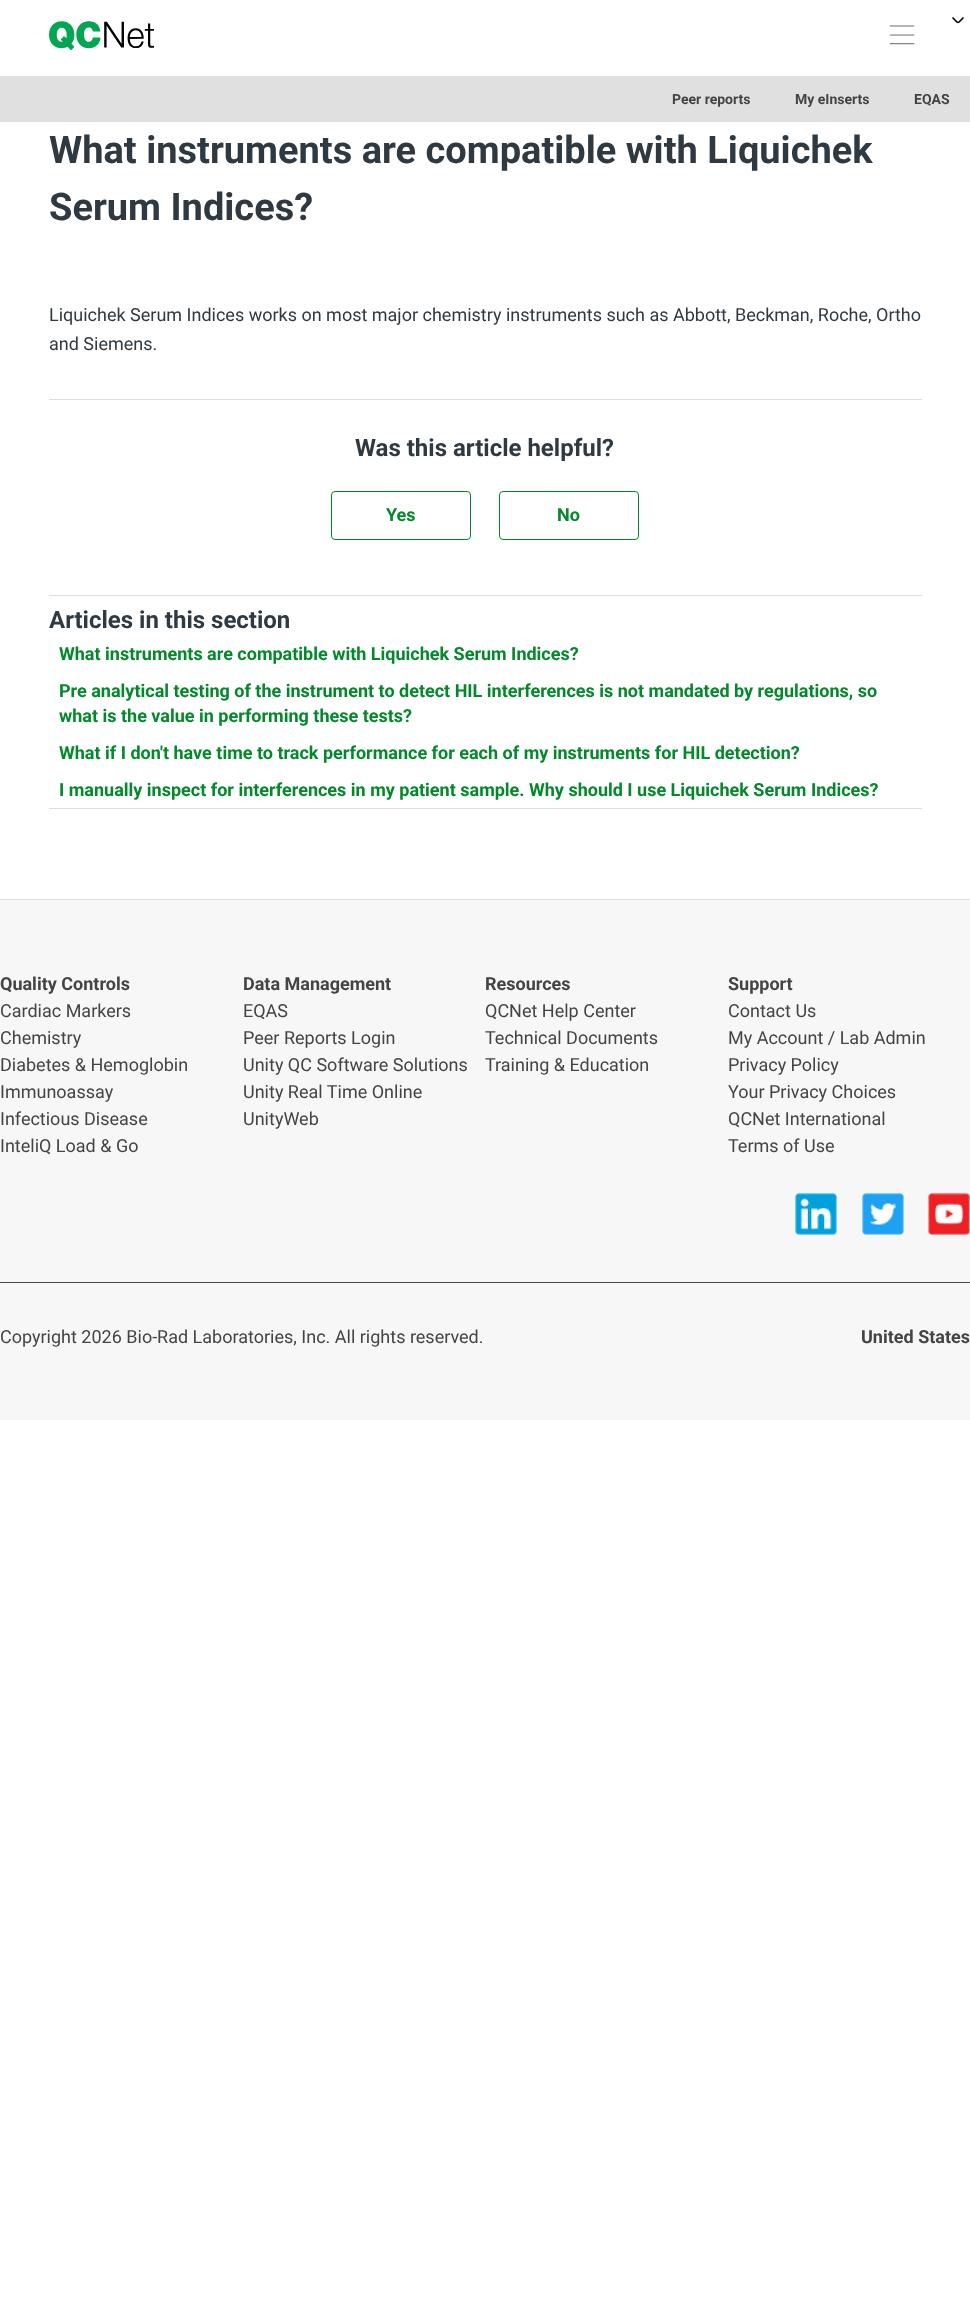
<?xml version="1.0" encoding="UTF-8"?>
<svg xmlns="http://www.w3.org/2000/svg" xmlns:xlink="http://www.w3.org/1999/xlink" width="970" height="2316">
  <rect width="100%" height="100%" fill="#ffffff" />
  <image x="49" y="21" width="105" height="29" xlink:href="image1.png" />
  <image x="889" y="25" width="26" height="20" xlink:href="image2.png" />
  <rect y="76" width="970" height="46" fill="#e0e0e0" />
  <rect x="49" y="399" width="873" height="1" fill="#dddddd" />
  <rect x="331.5" y="491.5" width="139" height="48" rx="3.5" fill="none" stroke="#01892a" />
  <rect x="499.5" y="491.5" width="139" height="48" rx="3.5" fill="none" stroke="#01892a" />
  <rect x="49" y="595" width="873" height="1" fill="#dddddd" />
  <rect x="49" y="808" width="873" height="1" fill="#dddddd" />
  <path d="M 953 18 c 6 6 4 6 10 0" fill="none" stroke="#000000" stroke-width="1.7" stroke-linecap="round" />
  <rect y="900" width="970" height="520" fill="#f7f7f7" />
  <rect y="899" width="970" height="1" fill="#dddddd" />
  <image x="795" y="1193" width="42" height="42" xlink:href="image3.png" />
  <image x="862" y="1193" width="42" height="42" xlink:href="image4.png" />
  <image x="928" y="1193" width="42" height="42" xlink:href="image5.png" />
  <rect y="1282" width="970" height="1" fill="#444444" />
  <text x="672" y="104" style="font-family: Roboto; font-size: 14px; font-weight: bold; fill: #444444">Peer reports</text>
  <text x="795" y="104" style="font-family: Roboto; font-size: 14px; font-weight: bold; fill: #444444">My eInserts</text>
  <text x="914" y="104" style="font-family: Roboto; font-size: 14px; font-weight: bold; fill: #444444">EQAS</text>
  <text x="49" y="163" style="font-family: Roboto; font-size: 38px; font-weight: bold; fill: #2f3941">What instruments are compatible with Liquichek</text>
  <text x="49" y="220" style="font-family: Roboto; font-size: 38px; font-weight: bold; fill: #2f3941">Serum Indices?</text>
  <text x="49" y="321" style="font-family: Roboto; font-size: 18px; fill: #2f3941">Liquichek Serum Indices works on most major chemistry instruments such as Abbott, Beckman, Roche, Ortho</text>
  <text x="49" y="350" style="font-family: Roboto; font-size: 18px; fill: #2f3941">and Siemens.</text>
  <text x="355" y="456" style="font-family: Roboto; font-size: 24px; font-weight: bold; fill: #2f3941">Was this article helpful?</text>
  <text x="386" y="521" style="font-family: Roboto; font-size: 18px; font-weight: bold; fill: #01892a">Yes</text>
  <text x="557" y="521" style="font-family: Roboto; font-size: 18px; font-weight: bold; fill: #01892a">No</text>
  <text x="49" y="628" style="font-family: Roboto; font-size: 24px; font-weight: bold; fill: #2f3941">Articles in this section</text>
  <text x="59" y="660" style="font-family: Roboto; font-size: 18px; font-weight: bold; fill: #01892a">What instruments are compatible with Liquichek Serum Indices?</text>
  <text x="59" y="697" style="font-family: Roboto; font-size: 18px; font-weight: bold; fill: #01892a">Pre analytical testing of the instrument to detect HIL interferences is not mandated by regulations, so</text>
  <text x="59" y="722" style="font-family: Roboto; font-size: 18px; font-weight: bold; fill: #01892a">what is the value in performing these tests?</text>
  <text x="59" y="759" style="font-family: Roboto; font-size: 18px; font-weight: bold; fill: #01892a">What if I don't have time to track performance for each of my instruments for HIL detection?</text>
  <text x="59" y="796" style="font-family: Roboto; font-size: 18px; font-weight: bold; fill: #01892a">I manually inspect for interferences in my patient sample. Why should I use Liquichek Serum Indices?</text>
  <text x="0" y="990" style="font-family: Roboto; font-size: 18px; font-weight: bold; fill: #444444">Quality Controls</text>
  <text x="0" y="1017" style="font-family: Roboto; font-size: 18px; fill: #444444">Cardiac Markers</text>
  <text x="0" y="1044" style="font-family: Roboto; font-size: 18px; fill: #444444">Chemistry</text>
  <text x="0" y="1071" style="font-family: Roboto; font-size: 18px; fill: #444444">Diabetes &amp; Hemoglobin</text>
  <text x="0" y="1098" style="font-family: Roboto; font-size: 18px; fill: #444444">Immunoassay</text>
  <text x="0" y="1125" style="font-family: Roboto; font-size: 18px; fill: #444444">Infectious Disease</text>
  <text x="0" y="1152" style="font-family: Roboto; font-size: 18px; fill: #444444">InteliQ Load &amp; Go</text>
  <text x="243" y="990" style="font-family: Roboto; font-size: 18px; font-weight: bold; fill: #444444">Data Management</text>
  <text x="243" y="1017" style="font-family: Roboto; font-size: 18px; fill: #444444">EQAS</text>
  <text x="243" y="1044" style="font-family: Roboto; font-size: 18px; fill: #444444">Peer Reports Login</text>
  <text x="243" y="1071" style="font-family: Roboto; font-size: 18px; fill: #444444">Unity QC Software Solutions</text>
  <text x="243" y="1098" style="font-family: Roboto; font-size: 18px; fill: #444444">Unity Real Time Online</text>
  <text x="243" y="1125" style="font-family: Roboto; font-size: 18px; fill: #444444">UnityWeb</text>
  <text x="485" y="990" style="font-family: Roboto; font-size: 18px; font-weight: bold; fill: #444444">Resources</text>
  <text x="485" y="1017" style="font-family: Roboto; font-size: 18px; fill: #444444">QCNet Help Center</text>
  <text x="485" y="1044" style="font-family: Roboto; font-size: 18px; fill: #444444">Technical Documents</text>
  <text x="485" y="1071" style="font-family: Roboto; font-size: 18px; fill: #444444">Training &amp; Education</text>
  <text x="728" y="990" style="font-family: Roboto; font-size: 18px; font-weight: bold; fill: #444444">Support</text>
  <text x="728" y="1017" style="font-family: Roboto; font-size: 18px; fill: #444444">Contact Us</text>
  <text x="728" y="1044" style="font-family: Roboto; font-size: 18px; fill: #444444">My Account / Lab Admin</text>
  <text x="728" y="1071" style="font-family: Roboto; font-size: 18px; fill: #444444">Privacy Policy</text>
  <text x="728" y="1098" style="font-family: Roboto; font-size: 18px; fill: #444444">Your Privacy Choices</text>
  <text x="728" y="1125" style="font-family: Roboto; font-size: 18px; fill: #444444">QCNet International</text>
  <text x="728" y="1152" style="font-family: Roboto; font-size: 18px; fill: #444444">Terms of Use</text>
  <text x="0" y="1343" style="font-family: Roboto; font-size: 18px; fill: #444444">Copyright 2026 Bio-Rad Laboratories, Inc. All rights reserved.</text>
  <text x="861" y="1343" style="font-family: Roboto; font-size: 18px; font-weight: bold; fill: #444444">United States</text>
</svg>
